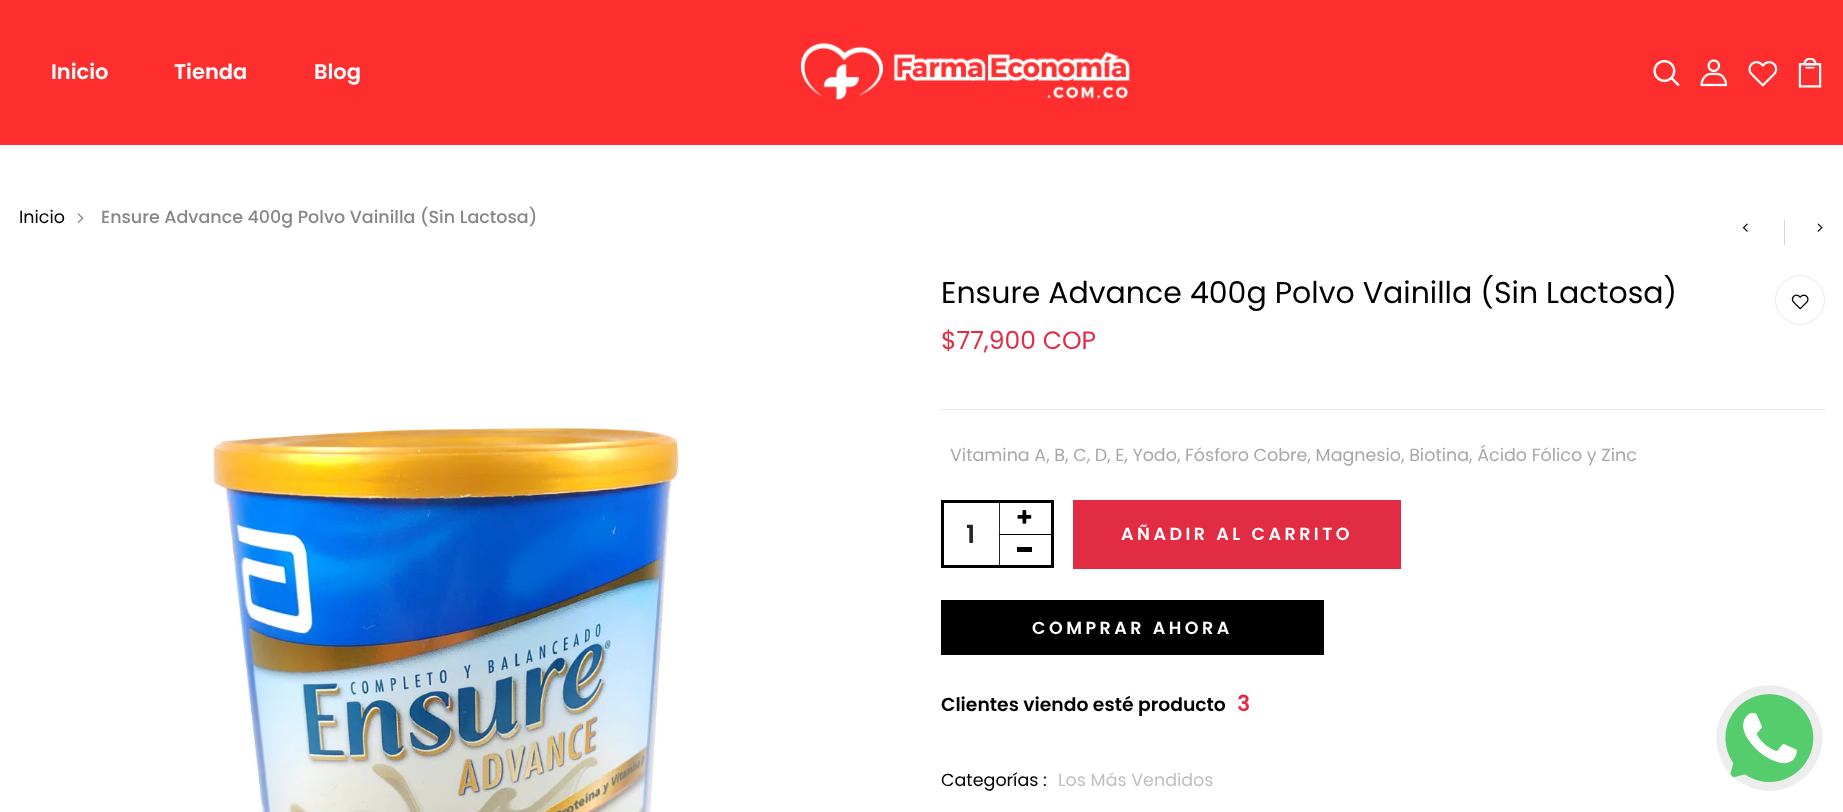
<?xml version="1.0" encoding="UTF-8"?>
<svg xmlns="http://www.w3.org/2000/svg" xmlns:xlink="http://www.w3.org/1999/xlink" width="1843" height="812">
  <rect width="100%" height="100%" fill="#ffffff" />
  <rect width="1843" height="145" fill="#ff2e2e" />
  <image x="800" y="42" width="330" height="59" xlink:href="image1.png" />
  <image x="1653" y="60" width="27" height="26" xlink:href="image2.png" />
  <image x="1700" y="59" width="28" height="28" xlink:href="image3.png" />
  <image x="1748" y="61" width="30" height="26" xlink:href="image4.png" />
  <image x="1798" y="58" width="24" height="30" xlink:href="image5.png" />
  <image x="77" y="213" width="7" height="10" xlink:href="image6.png" />
  <image x="1742" y="223" width="6" height="9" xlink:href="image7.png" />
  <rect x="1784" y="220" width="1" height="25" fill="#d6d6d6" />
  <image x="1817" y="223" width="6" height="9" xlink:href="image8.png" />
  <image x="212" y="427" width="469" height="385" xlink:href="image9.png" />
  <circle cx="1800" cy="300" r="24.5" fill="none" stroke="#e9e9e9" />
  <image x="1791" y="294" width="18" height="16" xlink:href="image10.png" />
  <rect x="941" y="409" width="884" height="1" fill="#e7e7e7" />
  <rect x="942.5" y="501.5" width="110" height="65" fill="none" stroke="#000000" stroke-width="3" />
  <image x="1017" y="510" width="15" height="14" xlink:href="image11.png" />
  <rect x="999" y="503" width="1" height="62" fill="#232529" />
  <rect x="999" y="534" width="52" height="1" fill="#000000" />
  <rect x="1017" y="547" width="15" height="5" fill="#000000" />
  <rect x="1073" y="500" width="328" height="69" fill="#e12c43" />
  <rect x="941" y="600" width="383" height="55" fill="#000000" />
  <image x="1716" y="685" width="107" height="106" xlink:href="image12.png" />
  <text x="51" y="79" style="font-family: Poppins; font-size: 21px; font-weight: 600; fill: #ffffff">Inicio</text>
  <text x="174" y="79" style="font-family: Poppins; font-size: 21px; font-weight: 600; fill: #ffffff">Tienda</text>
  <text x="314" y="79" style="font-family: Poppins; font-size: 21px; font-weight: 600; fill: #ffffff">Blog</text>
  <text x="19" y="223" style="font-family: Poppins; font-size: 17.5px; fill: #000000">Inicio</text>
  <text x="101" y="223" style="font-family: Poppins; font-size: 17.5px; font-weight: 500; fill: #878787">Ensure Advance 400g Polvo Vainilla (Sin Lactosa)</text>
  <text x="941" y="303" style="font-family: Poppins; font-size: 30px; fill: #000000">Ensure Advance 400g Polvo Vainilla (Sin Lactosa)</text>
  <text x="941" y="349" style="font-family: Poppins; font-size: 25px; fill: #e12c43">$77,900 COP</text>
  <text x="950" y="461" style="font-family: Poppins; font-size: 17.5px; fill: #a8a8a8">Vitamina A, B, C, D, E, Yodo, Fósforo Cobre, Magnesio, Biotina, Ácido Fólico y Zinc</text>
  <text x="966" y="543" style="font-family: Poppins; font-size: 25px; font-weight: 600; fill: #232529">1</text>
  <text x="1121" y="540" style="font-family: Poppins; font-size: 17.5px; font-weight: 600; letter-spacing: 3.5px; fill: #ffffff">AÑADIR AL CARRITO</text>
  <text x="1032" y="634" style="font-family: Poppins; font-size: 17.5px; font-weight: 600; letter-spacing: 3.5px; fill: #ffffff">COMPRAR AHORA</text>
  <text x="941" y="711" style="font-family: Poppins; font-size: 18.75px; font-weight: 600; fill: #000000">Clientes viendo esté producto</text>
  <text x="1237" y="711" style="font-family: Poppins; font-size: 22px; font-weight: 600; fill: #e12c43">3</text>
  <text x="941" y="786" style="font-family: Poppins; font-size: 17.5px; fill: #000000">Categorías :</text>
  <text x="1058" y="786" style="font-family: Poppins; font-size: 17.5px; fill: #bfbfbf">Los Más Vendidos</text>
</svg>
